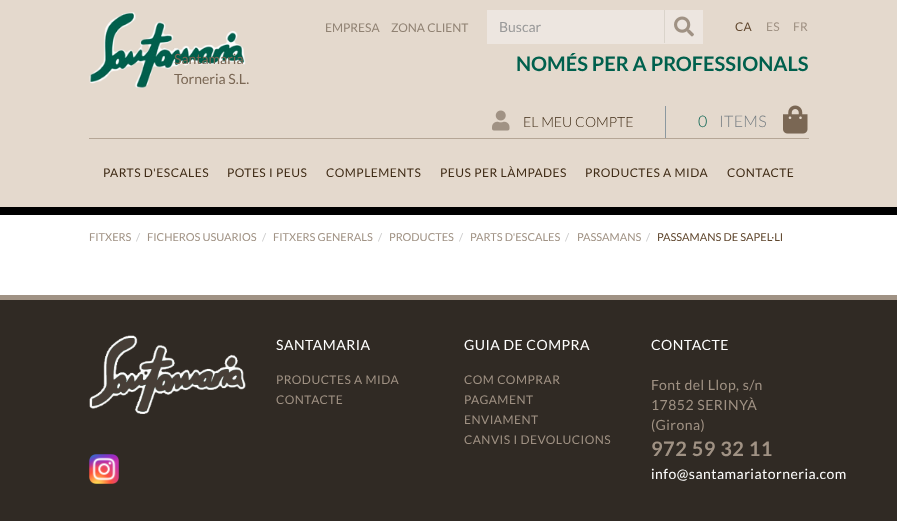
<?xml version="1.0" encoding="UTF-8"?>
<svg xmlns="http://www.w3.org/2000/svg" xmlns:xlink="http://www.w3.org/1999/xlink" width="897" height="521">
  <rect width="100%" height="100%" fill="#ffffff" />
  <rect width="897" height="207" fill="#e4d9cd" />
  <image x="89" y="12" width="157" height="77" xlink:href="image1.png" />
  <rect x="487" y="10" width="216" height="34" fill="#ede6e0" />
  <rect x="664" y="10" width="1" height="33" fill="#dad4cb" />
  <image x="674" y="16" width="20" height="21" xlink:href="image2.png" />
  <rect x="665" y="106" width="1" height="32" fill="#8b989f" />
  <image x="492" y="110" width="18" height="21" xlink:href="image3.png" />
  <image x="783" y="105" width="25" height="29" xlink:href="image4.png" />
  <rect y="207" width="897" height="8" fill="#000000" />
  <rect x="89" y="138" width="720" height="1" fill="#b5a696" />
  <rect y="300" width="897" height="221" fill="#302a24" />
  <rect y="295" width="897" height="5" fill="#a09284" />
  <image x="89" y="335" width="157" height="79" xlink:href="image5.png" />
  <image x="89" y="454" width="30" height="30" xlink:href="image6.png" />
  <text x="174" y="64" style="font-family: Lato; font-size: 14px; fill: #7a6754">Santamaria</text>
  <text x="174" y="84" style="font-family: Lato; font-size: 14px; fill: #7a6754">Torneria S.L.</text>
  <text x="325" y="32" style="font-family: Lato; font-size: 12px; fill: #908273">EMPRESA</text>
  <text x="391" y="32" style="font-family: Lato; font-size: 12px; fill: #908273">ZONA CLIENT</text>
  <text x="499" y="32" style="font-family: Lato; font-size: 14px; fill: #999999">Buscar</text>
  <text x="735" y="31" style="font-family: Lato; font-size: 12px; letter-spacing: 0.25px; fill: #60472e">CA</text>
  <text x="766" y="31" style="font-family: Lato; font-size: 12px; letter-spacing: 0.25px; fill: #a09284">ES</text>
  <text x="793" y="31" style="font-family: Lato; font-size: 12px; letter-spacing: 0.25px; fill: #a09284">FR</text>
  <text x="516" y="71" style="font-family: Lato; font-size: 20px; font-weight: bold; fill: #00604d">NOMÉS PER A PROFESSIONALS</text>
  <text x="523" y="127" style="font-family: Lato; font-size: 14px; font-weight: 300; fill: #3e2a14">EL MEU COMPTE</text>
  <text x="698" y="127" style="font-family: Lato; font-size: 16px; font-weight: 300; letter-spacing: 0.25px; fill: #00604d">0</text>
  <text x="719" y="127" style="font-family: Lato; font-size: 16px; font-weight: 300; letter-spacing: 0.25px; fill: #767e83">ITEMS</text>
  <text x="103" y="177" style="font-family: Lato; font-size: 12px; letter-spacing: 0.5px; fill: #3e2a14">PARTS D'ESCALES</text>
  <text x="227" y="177" style="font-family: Lato; font-size: 12px; letter-spacing: 0.5px; fill: #3e2a14">POTES I PEUS</text>
  <text x="326" y="177" style="font-family: Lato; font-size: 12px; letter-spacing: 0.5px; fill: #3e2a14">COMPLEMENTS</text>
  <text x="440" y="177" style="font-family: Lato; font-size: 12px; letter-spacing: 0.5px; fill: #3e2a14">PEUS PER LÀMPADES</text>
  <text x="585" y="177" style="font-family: Lato; font-size: 12px; letter-spacing: 0.5px; fill: #3e2a14">PRODUCTES A MIDA</text>
  <text x="727" y="177" style="font-family: Lato; font-size: 12px; letter-spacing: 0.5px; fill: #3e2a14">CONTACTE</text>
  <text x="89" y="241" style="font-family: Lato; font-size: 11px; fill: #a09284">FITXERS</text>
  <text x="136" y="241" style="font-family: Lato; font-size: 11px; fill: #cccccc">/</text>
  <text x="147" y="241" style="font-family: Lato; font-size: 11px; fill: #a09284">FICHEROS USUARIOS</text>
  <text x="262" y="241" style="font-family: Lato; font-size: 11px; fill: #cccccc">/</text>
  <text x="273" y="241" style="font-family: Lato; font-size: 11px; fill: #a09284">FITXERS GENERALS</text>
  <text x="378" y="241" style="font-family: Lato; font-size: 11px; fill: #cccccc">/</text>
  <text x="389" y="241" style="font-family: Lato; font-size: 11px; fill: #a09284">PRODUCTES</text>
  <text x="459" y="241" style="font-family: Lato; font-size: 11px; fill: #cccccc">/</text>
  <text x="470" y="241" style="font-family: Lato; font-size: 11px; fill: #a09284">PARTS D'ESCALES</text>
  <text x="565" y="241" style="font-family: Lato; font-size: 11px; fill: #cccccc">/</text>
  <text x="577" y="241" style="font-family: Lato; font-size: 11px; fill: #a09284">PASSAMANS</text>
  <text x="646" y="241" style="font-family: Lato; font-size: 11px; fill: #cccccc">/</text>
  <text x="657" y="241" style="font-family: Lato; font-size: 11px; fill: #60472e">PASSAMANS DE SAPEL·LI</text>
  <text x="276" y="350" style="font-family: Lato; font-size: 14px; letter-spacing: 0.5px; fill: #ffffff">SANTAMARIA</text>
  <text x="276" y="384" style="font-family: Lato; font-size: 12px; letter-spacing: 0.5px; fill: #a09284">PRODUCTES A MIDA</text>
  <text x="276" y="404" style="font-family: Lato; font-size: 12px; letter-spacing: 0.5px; fill: #a09284">CONTACTE</text>
  <text x="464" y="350" style="font-family: Lato; font-size: 14px; letter-spacing: 0.5px; fill: #ffffff">GUIA DE COMPRA</text>
  <text x="464" y="384" style="font-family: Lato; font-size: 12px; letter-spacing: 0.5px; fill: #a09284">COM COMPRAR</text>
  <text x="464" y="404" style="font-family: Lato; font-size: 12px; letter-spacing: 0.5px; fill: #a09284">PAGAMENT</text>
  <text x="464" y="424" style="font-family: Lato; font-size: 12px; letter-spacing: 0.5px; fill: #a09284">ENVIAMENT</text>
  <text x="464" y="444" style="font-family: Lato; font-size: 12px; letter-spacing: 0.5px; fill: #a09284">CANVIS I DEVOLUCIONS</text>
  <text x="651" y="350" style="font-family: Lato; font-size: 14px; letter-spacing: 0.5px; fill: #ffffff">CONTACTE</text>
  <text x="651" y="390" style="font-family: Lato; font-size: 14px; letter-spacing: 0.5px; fill: #a09284">Font del Llop, s/n</text>
  <text x="651" y="410" style="font-family: Lato; font-size: 14px; letter-spacing: 0.5px; fill: #a09284">17852 SERINYÀ</text>
  <text x="651" y="430" style="font-family: Lato; font-size: 14px; letter-spacing: 0.5px; fill: #a09284">(Girona)</text>
  <text x="651" y="456" style="font-family: Lato; font-size: 20px; font-weight: bold; letter-spacing: 0.5px; fill: #a09284">972 59 32 11</text>
  <text x="651" y="479" style="font-family: Lato; font-size: 14px; letter-spacing: 0.5px; fill: #ffffff">info@santamariatorneria.com</text>
</svg>
